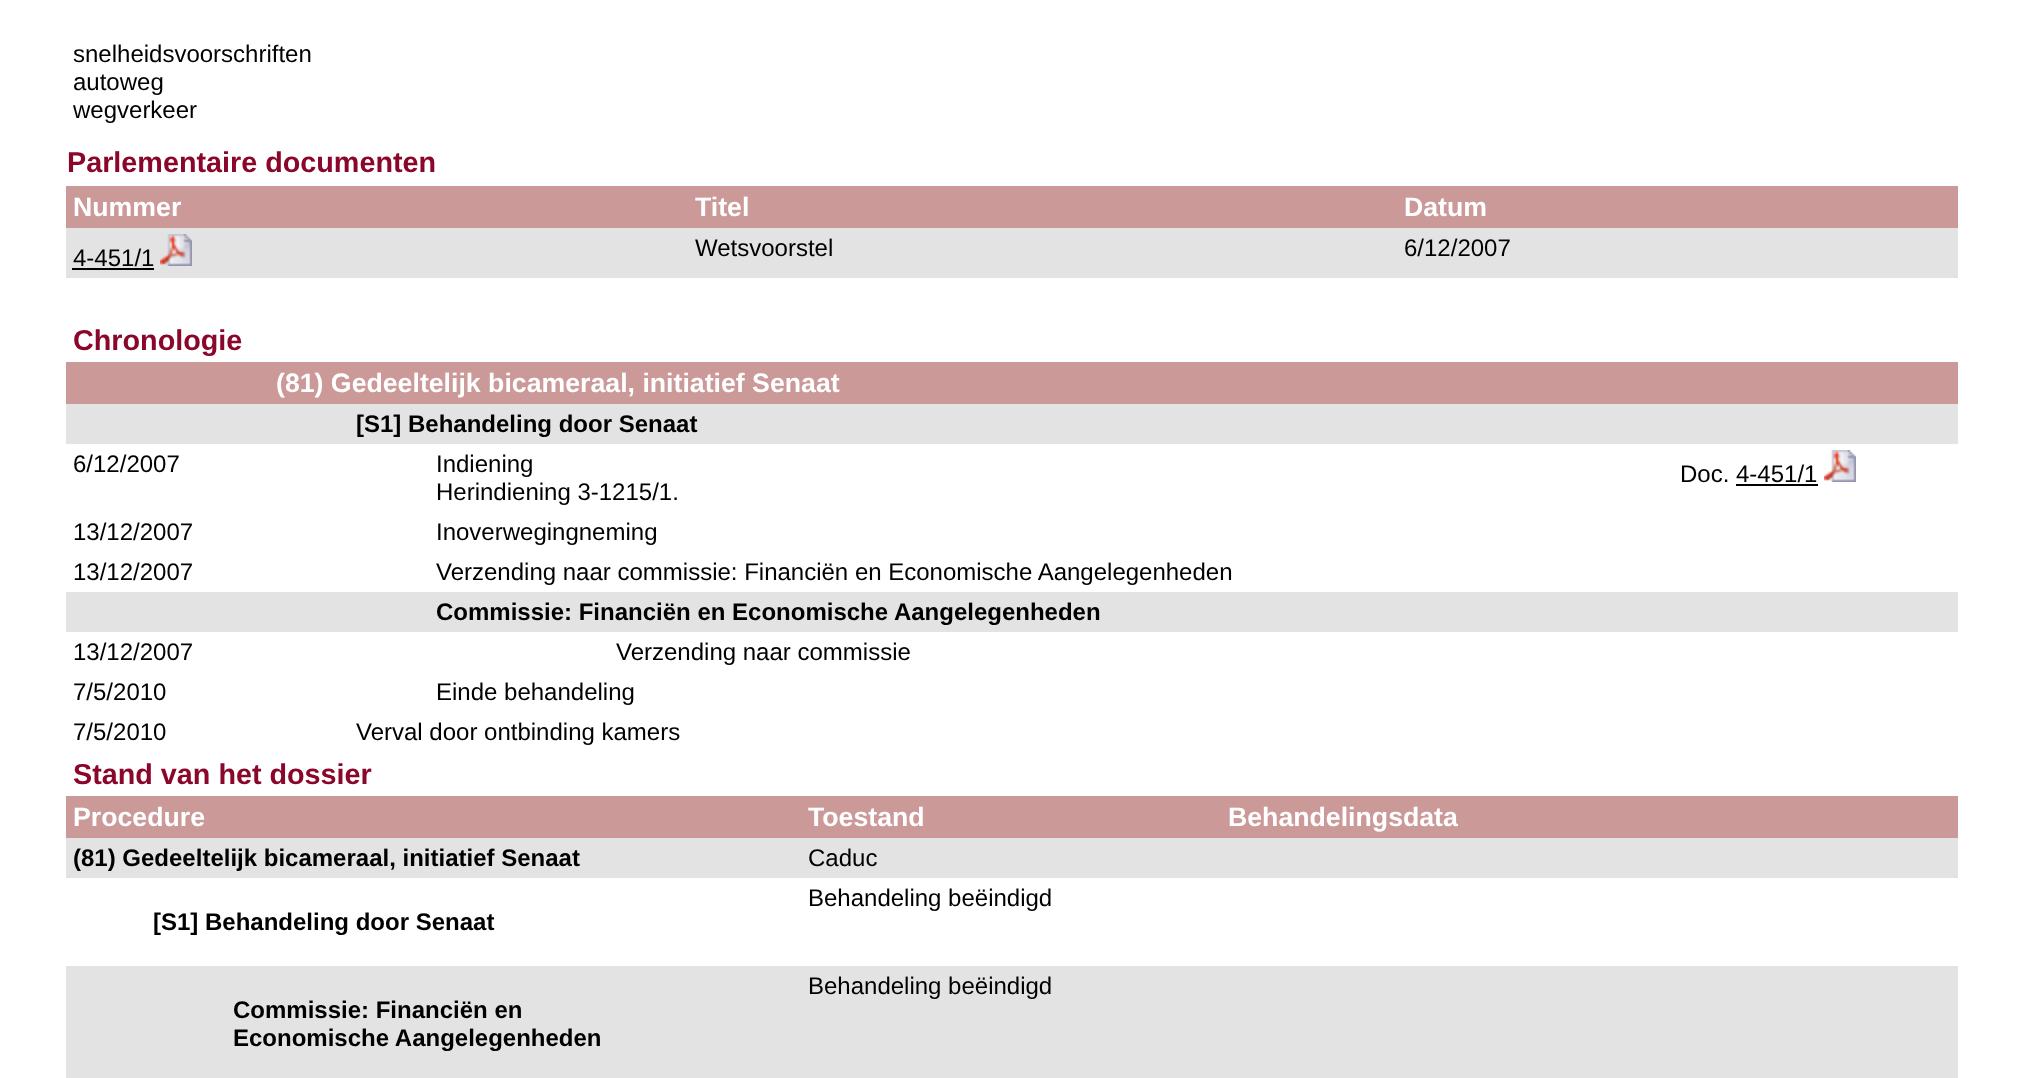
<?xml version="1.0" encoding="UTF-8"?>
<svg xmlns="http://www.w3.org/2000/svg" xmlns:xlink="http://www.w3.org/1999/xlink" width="2023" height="1078">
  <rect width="100%" height="100%" fill="#ffffff" />
  <rect x="66" y="186" width="1892" height="42" fill="#cc9999" />
  <rect x="66" y="228" width="1892" height="50" fill="#e3e3e3" />
  <rect x="72" y="268" width="82" height="2" fill="#000000" />
  <image x="160" y="234" width="32" height="32" xlink:href="image1.png" />
  <rect x="66" y="362" width="1892" height="42" fill="#cc9999" />
  <rect x="66" y="404" width="1892" height="40" fill="#e3e3e3" />
  <image x="1824" y="450" width="32" height="32" xlink:href="image2.png" />
  <rect x="1736" y="484" width="82" height="2" fill="#000000" />
  <rect x="66" y="592" width="1892" height="40" fill="#e3e3e3" />
  <rect x="66" y="796" width="1892" height="42" fill="#cc9999" />
  <rect x="66" y="838" width="1892" height="40" fill="#e3e3e3" />
  <rect x="66" y="966" width="1892" height="112" fill="#e3e3e3" />
  <text x="73" y="62" style="font-family: Liberation Sans; font-size: 24px; fill: #000000">snelheidsvoorschriften</text>
  <text x="73" y="90" style="font-family: Liberation Sans; font-size: 24px; fill: #000000">autoweg</text>
  <text x="73" y="118" style="font-family: Liberation Sans; font-size: 24px; fill: #000000">wegverkeer</text>
  <text x="67" y="172" style="font-family: Liberation Sans; font-size: 28.75px; font-weight: bold; fill: #8a062b">Parlementaire documenten</text>
  <text x="73" y="216" style="font-family: Liberation Sans; font-size: 26.7px; font-weight: bold; fill: #ffffff">Nummer</text>
  <text x="695" y="216" style="font-family: Liberation Sans; font-size: 26.7px; font-weight: bold; fill: #ffffff">Titel</text>
  <text x="1404" y="216" style="font-family: Liberation Sans; font-size: 26.7px; font-weight: bold; fill: #ffffff">Datum</text>
  <text x="73" y="266" style="font-family: Liberation Sans; font-size: 24px; fill: #000000">4-451/1</text>
  <text x="695" y="256" style="font-family: Liberation Sans; font-size: 24px; fill: #000000">Wetsvoorstel</text>
  <text x="1404" y="256" style="font-family: Liberation Sans; font-size: 24px; fill: #000000">6/12/2007</text>
  <text x="73" y="350" style="font-family: Liberation Sans; font-size: 28.75px; font-weight: bold; fill: #8a062b">Chronologie</text>
  <text x="276" y="392" style="font-family: Liberation Sans; font-size: 26.7px; font-weight: bold; fill: #ffffff">(81) Gedeeltelijk bicameraal, initiatief Senaat</text>
  <text x="356" y="432" style="font-family: Liberation Sans; font-size: 24px; font-weight: bold; fill: #000000">[S1] Behandeling door Senaat</text>
  <text x="73" y="472" style="font-family: Liberation Sans; font-size: 24px; fill: #000000">6/12/2007</text>
  <text x="436" y="472" style="font-family: Liberation Sans; font-size: 24px; fill: #000000">Indiening</text>
  <text x="436" y="500" style="font-family: Liberation Sans; font-size: 24px; fill: #000000">Herindiening 3-1215/1.</text>
  <text x="1680" y="482" style="font-family: Liberation Sans; font-size: 24px; fill: #000000">Doc. 4-451/1</text>
  <text x="73" y="540" style="font-family: Liberation Sans; font-size: 24px; fill: #000000">13/12/2007</text>
  <text x="436" y="540" style="font-family: Liberation Sans; font-size: 24px; fill: #000000">Inoverwegingneming</text>
  <text x="73" y="580" style="font-family: Liberation Sans; font-size: 24px; fill: #000000">13/12/2007</text>
  <text x="436" y="580" style="font-family: Liberation Sans; font-size: 24px; fill: #000000">Verzending naar commissie: Financiën en Economische Aangelegenheden</text>
  <text x="436" y="620" style="font-family: Liberation Sans; font-size: 24px; font-weight: bold; fill: #000000">Commissie: Financiën en Economische Aangelegenheden</text>
  <text x="73" y="660" style="font-family: Liberation Sans; font-size: 24px; fill: #000000">13/12/2007</text>
  <text x="616" y="660" style="font-family: Liberation Sans; font-size: 24px; fill: #000000">Verzending naar commissie</text>
  <text x="73" y="700" style="font-family: Liberation Sans; font-size: 24px; fill: #000000">7/5/2010</text>
  <text x="436" y="700" style="font-family: Liberation Sans; font-size: 24px; fill: #000000">Einde behandeling</text>
  <text x="73" y="740" style="font-family: Liberation Sans; font-size: 24px; fill: #000000">7/5/2010</text>
  <text x="356" y="740" style="font-family: Liberation Sans; font-size: 24px; fill: #000000">Verval door ontbinding kamers</text>
  <text x="73" y="784" style="font-family: Liberation Sans; font-size: 28.75px; font-weight: bold; fill: #8a062b">Stand van het dossier</text>
  <text x="73" y="826" style="font-family: Liberation Sans; font-size: 26.7px; font-weight: bold; fill: #ffffff">Procedure</text>
  <text x="808" y="826" style="font-family: Liberation Sans; font-size: 26.7px; font-weight: bold; fill: #ffffff">Toestand</text>
  <text x="1228" y="826" style="font-family: Liberation Sans; font-size: 26.7px; font-weight: bold; fill: #ffffff">Behandelingsdata</text>
  <text x="73" y="866" style="font-family: Liberation Sans; font-size: 24px; font-weight: bold; fill: #000000">(81) Gedeeltelijk bicameraal, initiatief Senaat</text>
  <text x="808" y="866" style="font-family: Liberation Sans; font-size: 24px; fill: #000000">Caduc</text>
  <text x="808" y="906" style="font-family: Liberation Sans; font-size: 24px; fill: #000000">Behandeling beëindigd</text>
  <text x="153" y="930" style="font-family: Liberation Sans; font-size: 24px; font-weight: bold; fill: #000000">[S1] Behandeling door Senaat</text>
  <text x="808" y="994" style="font-family: Liberation Sans; font-size: 24px; fill: #000000">Behandeling beëindigd</text>
  <text x="233" y="1018" style="font-family: Liberation Sans; font-size: 24px; font-weight: bold; fill: #000000">Commissie: Financiën en</text>
  <text x="233" y="1046" style="font-family: Liberation Sans; font-size: 24px; font-weight: bold; fill: #000000">Economische Aangelegenheden</text>
</svg>
